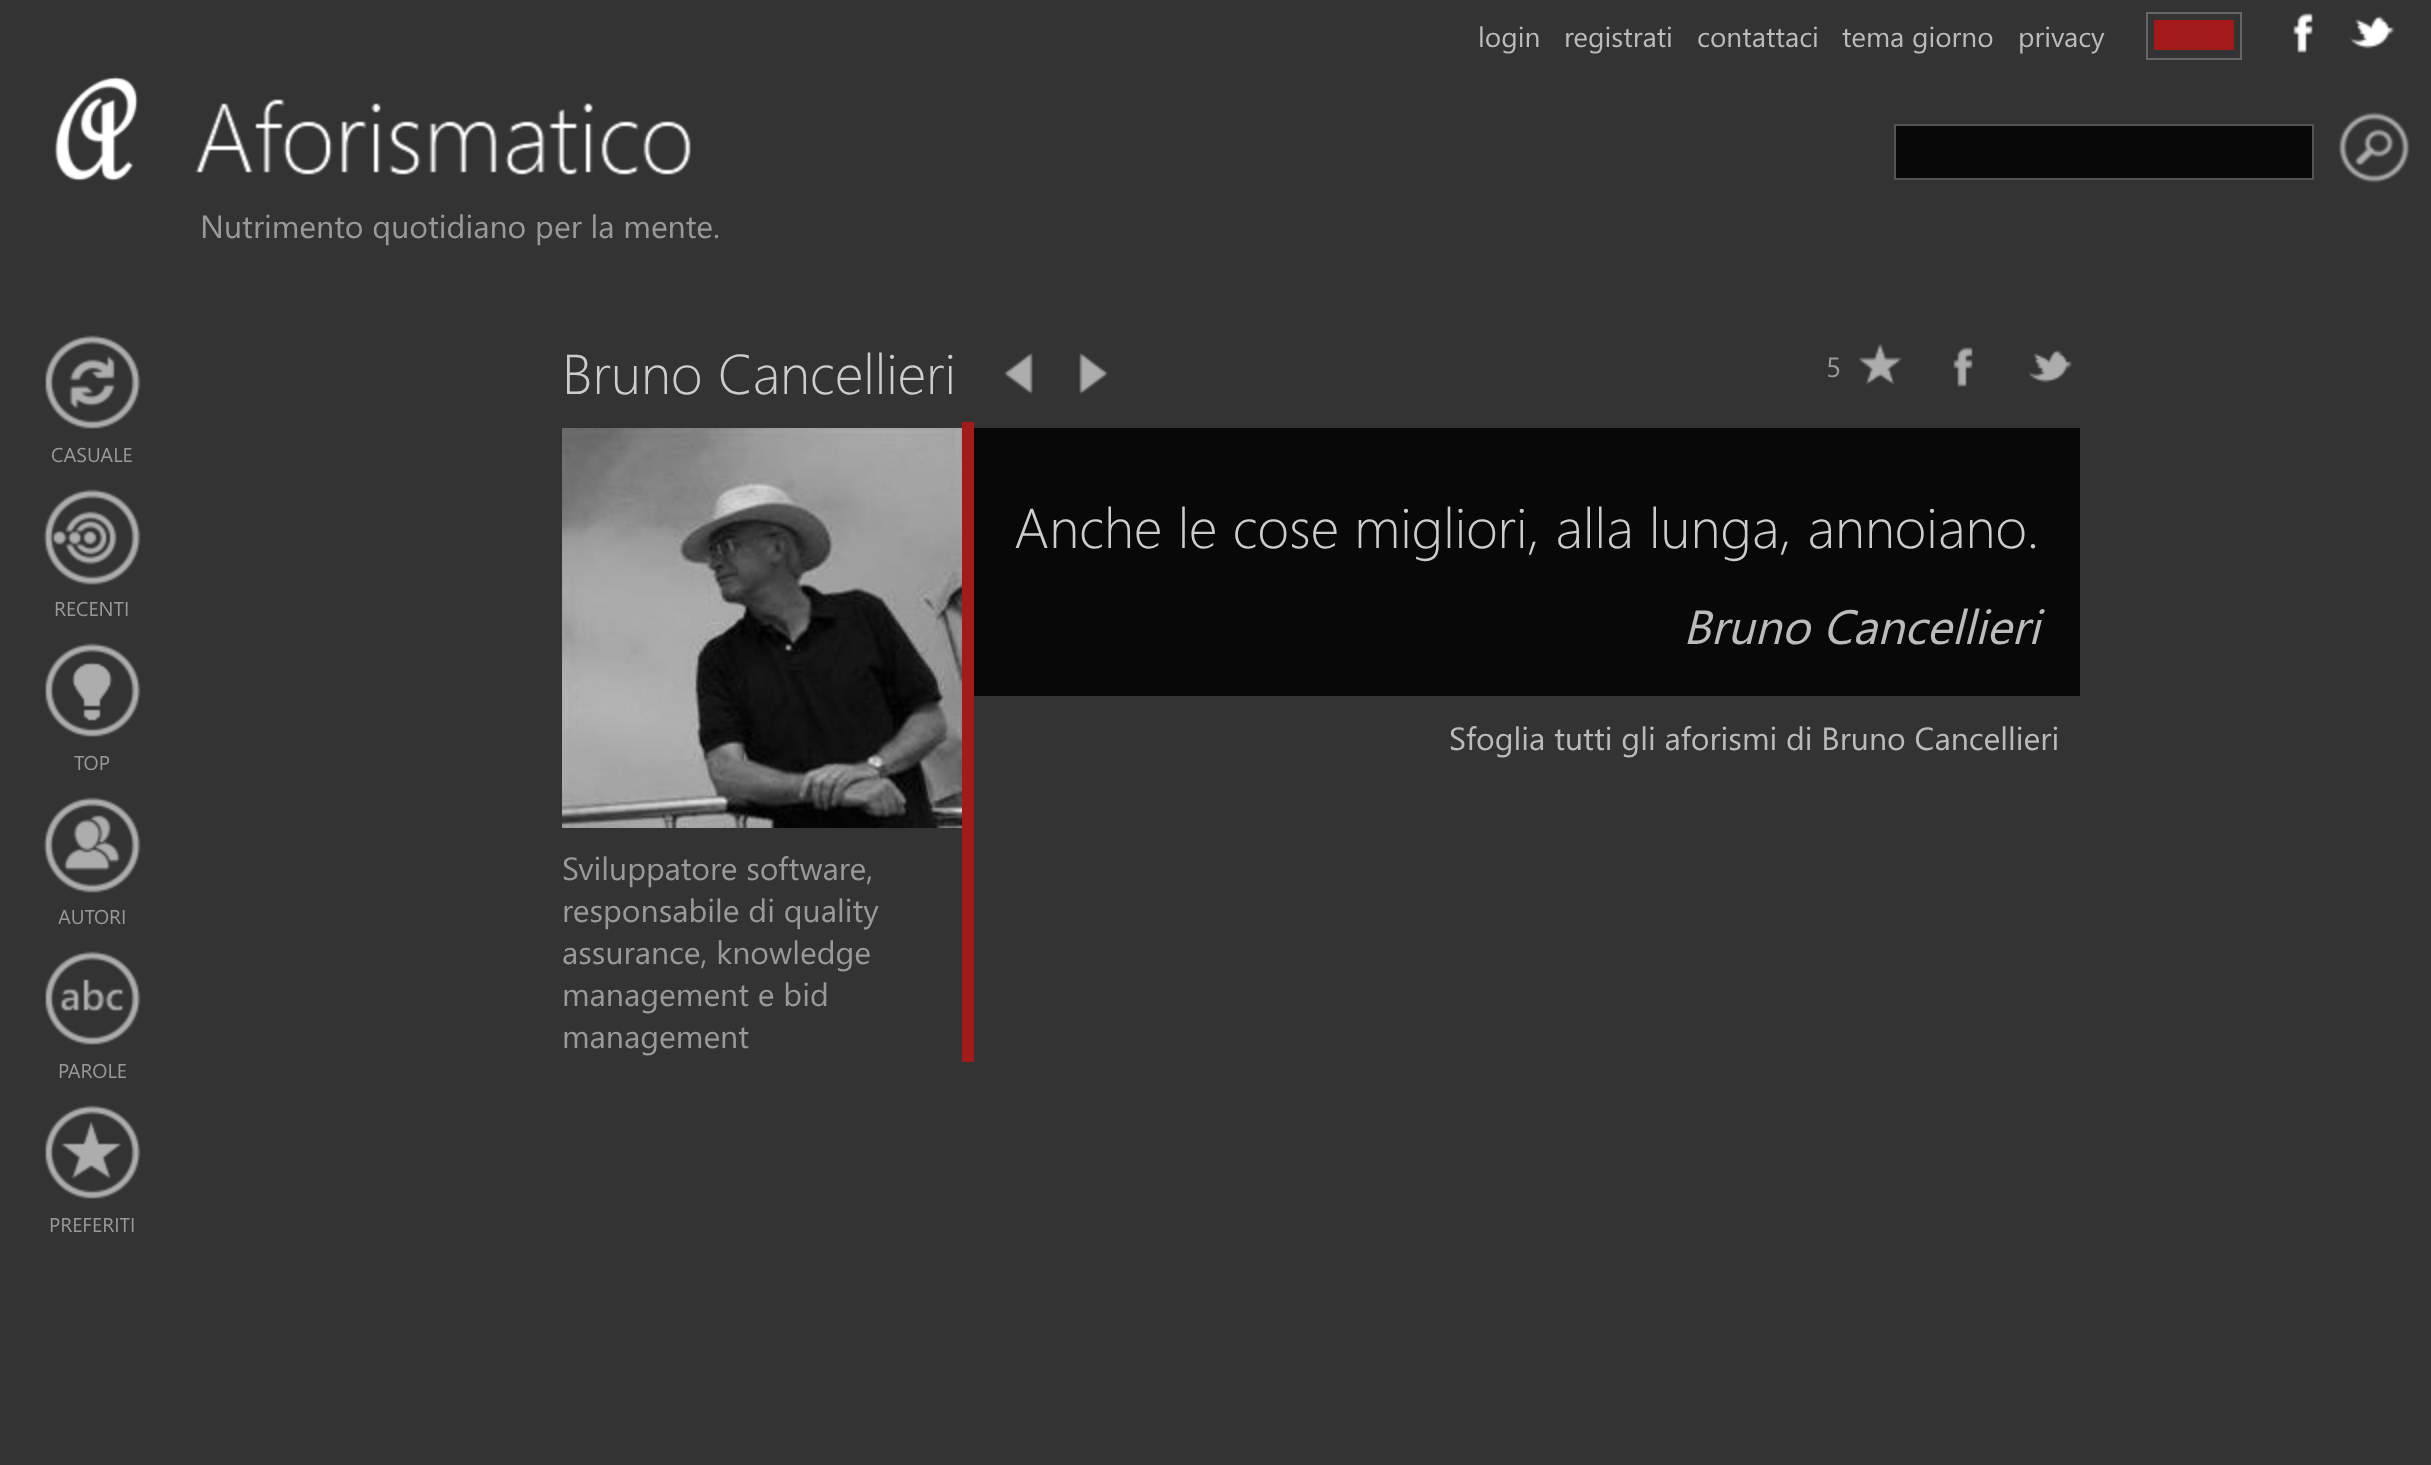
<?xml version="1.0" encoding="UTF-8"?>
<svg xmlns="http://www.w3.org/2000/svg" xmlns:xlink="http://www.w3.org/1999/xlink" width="2431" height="1465">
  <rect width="100%" height="100%" fill="#333333" />
  <rect x="2147" y="13" width="94" height="46" fill="none" stroke="#666666" stroke-width="2" />
  <rect x="2154" y="20" width="80" height="30" fill="#a31a1a" />
  <image x="2293" y="13" width="20" height="40" xlink:href="image1.png" />
  <image x="2349" y="15" width="46" height="34" xlink:href="image2.png" />
  <rect x="1895" y="125" width="418" height="54" fill="#080808" stroke="#555555" stroke-width="2" />
  <image x="2338" y="112" width="72" height="71" xlink:href="image3.png" />
  <image x="54" y="76" width="84" height="105" xlink:href="image4.png" />
  <image x="195" y="99" width="496" height="76" xlink:href="image5.png" />
  <image x="45" y="335" width="96" height="94" xlink:href="image6.png" />
  <image x="43" y="489" width="98" height="96" xlink:href="image7.png" />
  <image x="45" y="643" width="96" height="94" xlink:href="image8.png" />
  <image x="43" y="797" width="98" height="96" xlink:href="image9.png" />
  <image x="45" y="951" width="96" height="94" xlink:href="image10.png" />
  <image x="45" y="1105" width="96" height="94" xlink:href="image11.png" />
  <image x="1004" y="353" width="29" height="42" xlink:href="image12.png" />
  <image x="1079" y="353" width="29" height="42" xlink:href="image13.png" />
  <image x="1858" y="343" width="44" height="42" xlink:href="image14.png" />
  <image x="1953" y="347" width="20" height="40" xlink:href="image15.png" />
  <image x="2028" y="350" width="45" height="33" xlink:href="image16.png" />
  <rect x="974" y="428" width="1106" height="268" fill="#080808" />
  <rect x="962" y="422" width="12" height="640" fill="#a31a1a" />
  <image x="562" y="428" width="400" height="400" xlink:href="image17.png" />
  <text x="1478" y="47" style="font-family: Segoe UI; font-size: 28px; fill: #bbbbbb">login</text>
  <text x="1564" y="47" style="font-family: Segoe UI; font-size: 28px; fill: #bbbbbb">registrati</text>
  <text x="1697" y="47" style="font-family: Segoe UI; font-size: 28px; fill: #bbbbbb">contattaci</text>
  <text x="1842" y="47" style="font-family: Segoe UI; font-size: 28px; fill: #bbbbbb">tema giorno</text>
  <text x="2018" y="47" style="font-family: Segoe UI; font-size: 28px; fill: #bbbbbb">privacy</text>
  <text x="200" y="238" style="font-family: Segoe UI; font-size: 32px; fill: #999999">Nutrimento quotidiano per la mente.</text>
  <text x="51" y="462" style="font-family: Segoe UI; font-size: 20px; fill: #999999">CASUALE</text>
  <text x="54" y="616" style="font-family: Segoe UI; font-size: 20px; fill: #999999">RECENTI</text>
  <text x="74" y="770" style="font-family: Segoe UI; font-size: 20px; fill: #999999">TOP</text>
  <text x="58" y="924" style="font-family: Segoe UI; font-size: 20px; fill: #999999">AUTORI</text>
  <text x="58" y="1078" style="font-family: Segoe UI; font-size: 20px; fill: #999999">PAROLE</text>
  <text x="49" y="1232" style="font-family: Segoe UI; font-size: 20px; fill: #999999">PREFERITI</text>
  <text x="562" y="394" style="font-family: Segoe UI; font-size: 56px; font-weight: 300; fill: #cccccc">Bruno Cancellieri</text>
  <text x="1826" y="377" style="font-family: Segoe UI; font-size: 28px; fill: #999999">5</text>
  <text x="1014" y="548" style="font-family: Segoe UI; font-size: 56px; font-weight: 300; fill: #cccccc">Anche le cose migliori, alla lunga, annoiano.</text>
  <text x="1683" y="644" style="font-family: Segoe UI; font-size: 48px; font-style: italic; fill: #bbbbbb">Bruno Cancellieri</text>
  <text x="1449" y="750" style="font-family: Segoe UI; font-size: 32px; fill: #bbbbbb">Sfoglia tutti gli aforismi di Bruno Cancellieri</text>
  <text x="562" y="880" style="font-family: Segoe UI; font-size: 32px; fill: #999999">Sviluppatore software,</text>
  <text x="562" y="922" style="font-family: Segoe UI; font-size: 32px; fill: #999999">responsabile di quality</text>
  <text x="562" y="964" style="font-family: Segoe UI; font-size: 32px; fill: #999999">assurance, knowledge</text>
  <text x="562" y="1006" style="font-family: Segoe UI; font-size: 32px; fill: #999999">management e bid</text>
  <text x="562" y="1048" style="font-family: Segoe UI; font-size: 32px; fill: #999999">management</text>
</svg>
